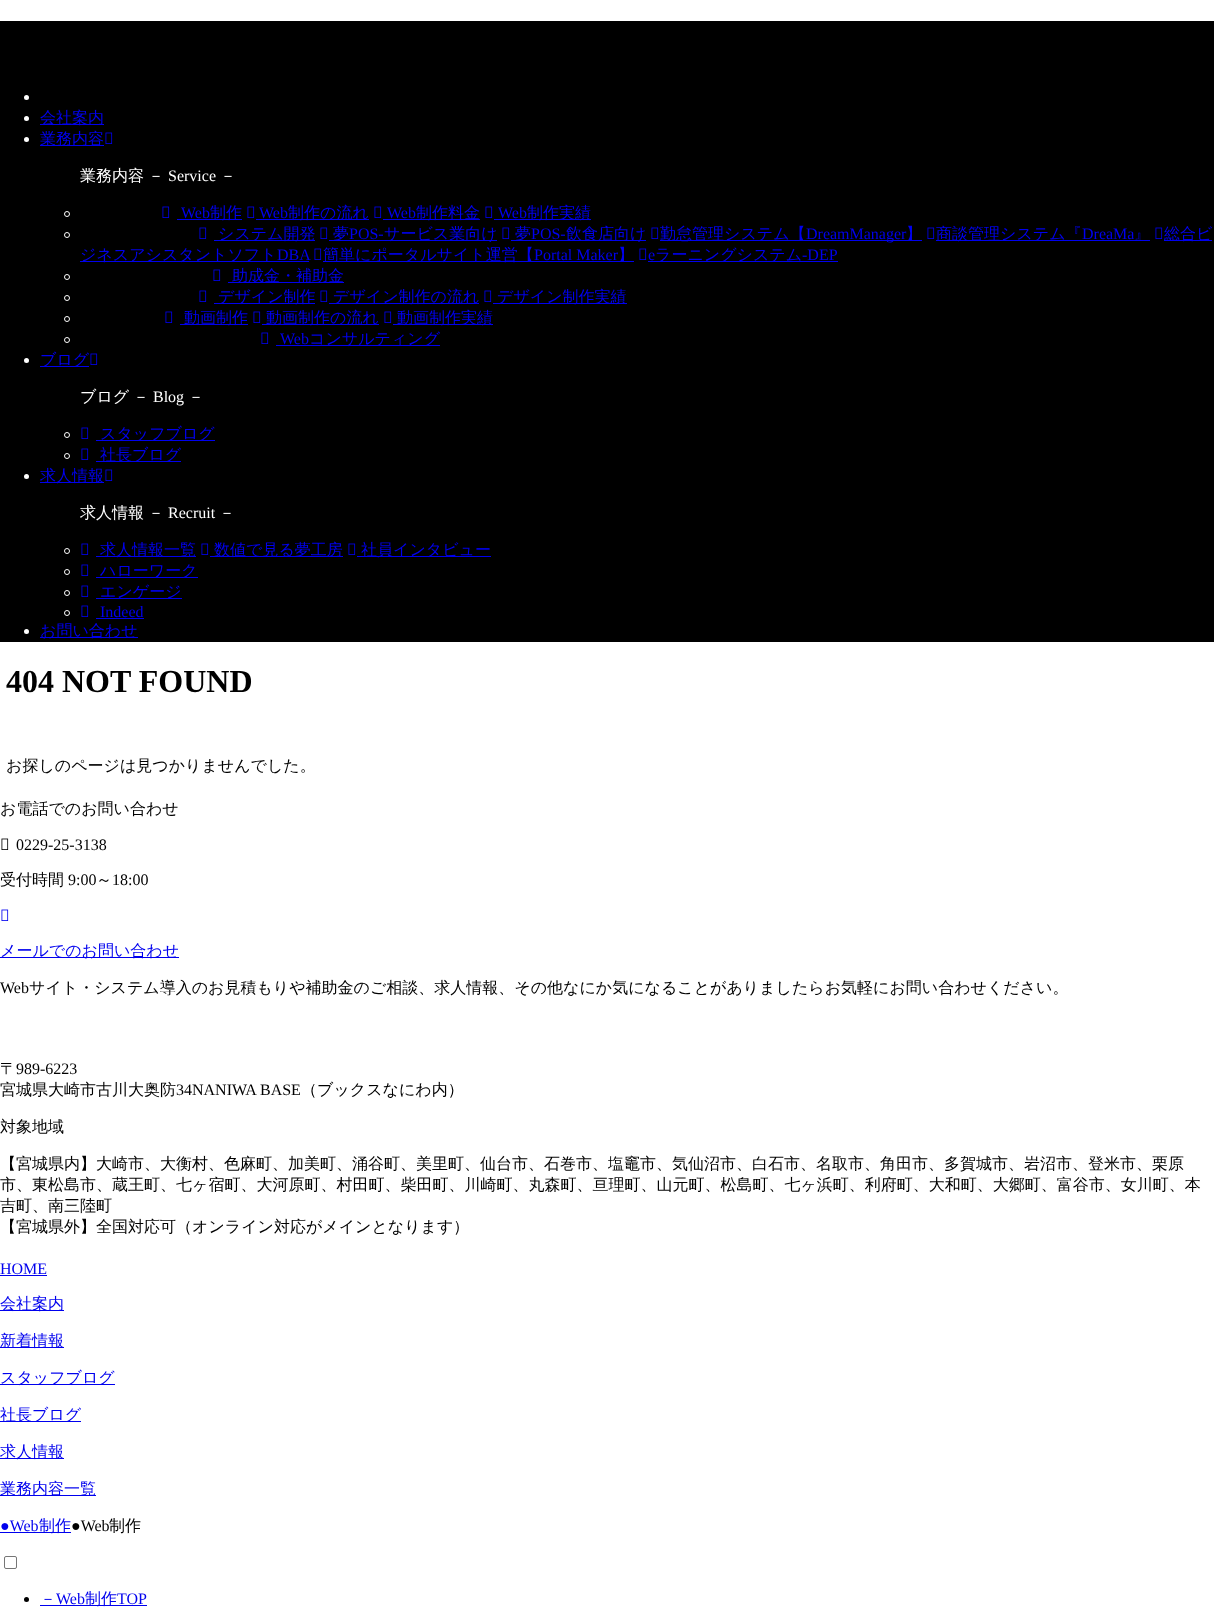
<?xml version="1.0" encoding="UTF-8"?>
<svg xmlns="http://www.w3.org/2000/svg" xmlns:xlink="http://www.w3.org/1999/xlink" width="1214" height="1608">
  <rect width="100%" height="100%" fill="#ffffff" />
  <rect y="21" width="1214" height="621" fill="#000000" />
  <circle cx="26.5" cy="97.5" r="2.5" fill="#ffffff" />
  <circle cx="26.5" cy="118.5" r="2.5" fill="#ffffff" />
  <rect x="40" y="124" width="64" height="1" fill="#0000ee" />
  <circle cx="26.5" cy="139.5" r="2.5" fill="#ffffff" />
  <rect x="40" y="145" width="64" height="1" fill="#0000ee" />
  <image x="105" y="132" width="8" height="12" xlink:href="image1.png" />
  <circle cx="67" cy="214" r="2.5" fill="none" stroke="#ffffff" />
  <image x="162" y="206" width="8" height="12" xlink:href="image1.png" />
  <rect x="177" y="219" width="65" height="1" fill="#0000ee" />
  <image x="247" y="206" width="8" height="12" xlink:href="image1.png" />
  <rect x="256" y="219" width="113" height="1" fill="#0000ee" />
  <image x="374" y="206" width="8" height="12" xlink:href="image1.png" />
  <rect x="383" y="219" width="97" height="1" fill="#0000ee" />
  <image x="485" y="206" width="8" height="12" xlink:href="image1.png" />
  <rect x="494" y="219" width="97" height="1" fill="#0000ee" />
  <image x="1155" y="227" width="8" height="12" xlink:href="image1.png" />
  <rect x="1164" y="240" width="48" height="1" fill="#0000ee" />
  <rect x="80" y="261" width="229" height="1" fill="#0000ee" />
  <circle cx="67" cy="235" r="2.5" fill="none" stroke="#ffffff" />
  <image x="199" y="227" width="8" height="12" xlink:href="image1.png" />
  <rect x="214" y="240" width="101" height="1" fill="#0000ee" />
  <image x="320" y="227" width="8" height="12" xlink:href="image1.png" />
  <rect x="329" y="240" width="168" height="1" fill="#0000ee" />
  <image x="502" y="227" width="8" height="12" xlink:href="image1.png" />
  <rect x="511" y="240" width="135" height="1" fill="#0000ee" />
  <image x="651" y="227" width="8" height="12" xlink:href="image1.png" />
  <rect x="660" y="240" width="262" height="1" fill="#0000ee" />
  <image x="927" y="227" width="8" height="12" xlink:href="image1.png" />
  <rect x="936" y="240" width="214" height="1" fill="#0000ee" />
  <image x="314" y="248" width="8" height="12" xlink:href="image1.png" />
  <rect x="323" y="261" width="311" height="1" fill="#0000ee" />
  <image x="639" y="248" width="8" height="12" xlink:href="image1.png" />
  <rect x="648" y="261" width="190" height="1" fill="#0000ee" />
  <circle cx="67" cy="277" r="2.5" fill="none" stroke="#ffffff" />
  <image x="213" y="269" width="8" height="12" xlink:href="image1.png" />
  <rect x="228" y="282" width="116" height="1" fill="#0000ee" />
  <circle cx="67" cy="298" r="2.5" fill="none" stroke="#ffffff" />
  <image x="199" y="290" width="8" height="12" xlink:href="image1.png" />
  <rect x="214" y="303" width="101" height="1" fill="#0000ee" />
  <image x="320" y="290" width="8" height="12" xlink:href="image1.png" />
  <rect x="329" y="303" width="150" height="1" fill="#0000ee" />
  <image x="484" y="290" width="8" height="12" xlink:href="image1.png" />
  <rect x="493" y="303" width="134" height="1" fill="#0000ee" />
  <circle cx="67" cy="319" r="2.5" fill="none" stroke="#ffffff" />
  <image x="165" y="311" width="8" height="12" xlink:href="image1.png" />
  <rect x="180" y="324" width="68" height="1" fill="#0000ee" />
  <image x="253" y="311" width="8" height="12" xlink:href="image1.png" />
  <rect x="262" y="324" width="117" height="1" fill="#0000ee" />
  <image x="384" y="311" width="8" height="12" xlink:href="image1.png" />
  <rect x="393" y="324" width="100" height="1" fill="#0000ee" />
  <circle cx="67" cy="340" r="2.5" fill="none" stroke="#ffffff" />
  <image x="261" y="332" width="8" height="12" xlink:href="image1.png" />
  <rect x="276" y="345" width="164" height="1" fill="#0000ee" />
  <circle cx="26.5" cy="360.5" r="2.5" fill="#ffffff" />
  <rect x="40" y="366" width="49" height="1" fill="#0000ee" />
  <image x="90" y="353" width="8" height="12" xlink:href="image1.png" />
  <circle cx="67" cy="435" r="2.5" fill="none" stroke="#ffffff" />
  <image x="81" y="427" width="8" height="12" xlink:href="image1.png" />
  <rect x="96" y="440" width="119" height="1" fill="#0000ee" />
  <circle cx="67" cy="456" r="2.5" fill="none" stroke="#ffffff" />
  <image x="81" y="448" width="8" height="12" xlink:href="image1.png" />
  <rect x="96" y="461" width="85" height="1" fill="#0000ee" />
  <circle cx="26.5" cy="476.5" r="2.5" fill="#ffffff" />
  <rect x="40" y="482" width="64" height="1" fill="#0000ee" />
  <image x="105" y="469" width="8" height="12" xlink:href="image1.png" />
  <circle cx="67" cy="551" r="2.5" fill="none" stroke="#ffffff" />
  <image x="81" y="543" width="8" height="12" xlink:href="image1.png" />
  <rect x="96" y="556" width="100" height="1" fill="#0000ee" />
  <image x="201" y="543" width="8" height="12" xlink:href="image1.png" />
  <rect x="210" y="556" width="133" height="1" fill="#0000ee" />
  <image x="348" y="543" width="8" height="12" xlink:href="image1.png" />
  <rect x="357" y="556" width="134" height="1" fill="#0000ee" />
  <circle cx="67" cy="572" r="2.5" fill="none" stroke="#ffffff" />
  <image x="81" y="564" width="8" height="12" xlink:href="image1.png" />
  <rect x="96" y="577" width="102" height="1" fill="#0000ee" />
  <circle cx="67" cy="593" r="2.5" fill="none" stroke="#ffffff" />
  <image x="81" y="585" width="8" height="12" xlink:href="image1.png" />
  <rect x="96" y="598" width="86" height="1" fill="#0000ee" />
  <circle cx="67" cy="613" r="2.5" fill="none" stroke="#ffffff" />
  <image x="81" y="605" width="8" height="12" xlink:href="image1.png" />
  <rect x="96" y="618" width="48" height="1" fill="#0000ee" />
  <circle cx="26.5" cy="631.5" r="2.5" fill="#ffffff" />
  <rect x="40" y="637" width="98" height="1" fill="#0000ee" />
  <image x="1" y="838" width="8" height="12" xlink:href="image2.png" />
  <image x="1" y="909" width="8" height="12" xlink:href="image3.png" />
  <rect y="957" width="179" height="1" fill="#0000ee" />
  <rect y="1275" width="47" height="1" fill="#0000ee" />
  <rect y="1310" width="64" height="1" fill="#0000ee" />
  <rect y="1347" width="64" height="1" fill="#0000ee" />
  <rect y="1384" width="115" height="1" fill="#0000ee" />
  <rect y="1421" width="81" height="1" fill="#0000ee" />
  <rect y="1458" width="64" height="1" fill="#0000ee" />
  <rect y="1495" width="96" height="1" fill="#0000ee" />
  <rect y="1532" width="71" height="1" fill="#0000ee" />
  <rect x="4.5" y="1556.5" width="12" height="12" rx="1.5" fill="none" stroke="#767676" />
  <circle cx="26.5" cy="1599.5" r="2.5" fill="#000000" />
  <rect x="40" y="1605" width="107" height="1" fill="#0000ee" />
  <text x="40" y="123" style="font-family: WenQuanYi Zen Hei; font-size: 16px; font-weight: 500; fill: #0000ee">会社案内</text>
  <text x="40" y="144" style="font-family: WenQuanYi Zen Hei; font-size: 16px; font-weight: 500; fill: #0000ee">業務内容</text>
  <text x="80" y="181" style="font-family: WenQuanYi Zen Hei; font-size: 16px; font-weight: 500; fill: #ffffff">業務内容</text>
  <text x="148" y="181" style="font-family: WenQuanYi Zen Hei; font-size: 16px; font-weight: 500; fill: #ffffff">－</text>
  <text x="168" y="181" style="font-family: Liberation Serif; font-size: 16px; fill: #ffffff">Service</text>
  <text x="220" y="181" style="font-family: WenQuanYi Zen Hei; font-size: 16px; font-weight: 500; fill: #ffffff">－</text>
  <text x="181" y="218" style="font-family: Liberation Serif; font-size: 16px; fill: #0000ee">Web</text>
  <text x="210" y="218" style="font-family: WenQuanYi Zen Hei; font-size: 16px; font-weight: 500; fill: #0000ee">制作</text>
  <text x="259" y="218" style="font-family: Liberation Serif; font-size: 16px; fill: #0000ee">Web</text>
  <text x="288" y="218" style="font-family: WenQuanYi Zen Hei; font-size: 16px; font-weight: 500; fill: #0000ee">制作の流れ</text>
  <text x="387" y="218" style="font-family: Liberation Serif; font-size: 16px; fill: #0000ee">Web</text>
  <text x="416" y="218" style="font-family: WenQuanYi Zen Hei; font-size: 16px; font-weight: 500; fill: #0000ee">制作料金</text>
  <text x="498" y="218" style="font-family: Liberation Serif; font-size: 16px; fill: #0000ee">Web</text>
  <text x="527" y="218" style="font-family: WenQuanYi Zen Hei; font-size: 16px; font-weight: 500; fill: #0000ee">制作実績</text>
  <text x="1164" y="239" style="font-family: WenQuanYi Zen Hei; font-size: 16px; font-weight: 500; fill: #0000ee">総合ビ</text>
  <text x="80" y="260" style="font-family: WenQuanYi Zen Hei; font-size: 16px; font-weight: 500; fill: #0000ee">ジネスアシスタントソフト</text>
  <text x="277" y="260" style="font-family: Liberation Serif; font-size: 16px; fill: #0000ee">DBA</text>
  <text x="218" y="239" style="font-family: WenQuanYi Zen Hei; font-size: 16px; font-weight: 500; fill: #0000ee">システム開発</text>
  <text x="333" y="239" style="font-family: WenQuanYi Zen Hei; font-size: 16px; font-weight: 500; fill: #0000ee">夢</text>
  <text x="349" y="239" style="font-family: Liberation Serif; font-size: 16px; fill: #0000ee">POS-</text>
  <text x="384" y="239" style="font-family: WenQuanYi Zen Hei; font-size: 16px; font-weight: 500; fill: #0000ee">サービス業向け</text>
  <text x="515" y="239" style="font-family: WenQuanYi Zen Hei; font-size: 16px; font-weight: 500; fill: #0000ee">夢</text>
  <text x="531" y="239" style="font-family: Liberation Serif; font-size: 16px; fill: #0000ee">POS-</text>
  <text x="566" y="239" style="font-family: WenQuanYi Zen Hei; font-size: 16px; font-weight: 500; fill: #0000ee">飲食店向け</text>
  <text x="660" y="239" style="font-family: WenQuanYi Zen Hei; font-size: 16px; font-weight: 500; fill: #0000ee">勤怠管理システム【</text>
  <text x="806" y="239" style="font-family: Liberation Serif; font-size: 16px; fill: #0000ee">DreamManager</text>
  <text x="906" y="239" style="font-family: WenQuanYi Zen Hei; font-size: 16px; font-weight: 500; fill: #0000ee">】</text>
  <text x="936" y="239" style="font-family: WenQuanYi Zen Hei; font-size: 16px; font-weight: 500; fill: #0000ee">商談管理システム『</text>
  <text x="1082" y="239" style="font-family: Liberation Serif; font-size: 16px; fill: #0000ee">DreaMa</text>
  <text x="1134" y="239" style="font-family: WenQuanYi Zen Hei; font-size: 16px; font-weight: 500; fill: #0000ee">』</text>
  <text x="323" y="260" style="font-family: WenQuanYi Zen Hei; font-size: 16px; font-weight: 500; fill: #0000ee">簡単にポータルサイト運営【</text>
  <text x="534" y="260" style="font-family: Liberation Serif; font-size: 16px; fill: #0000ee">Portal Maker</text>
  <text x="618" y="260" style="font-family: WenQuanYi Zen Hei; font-size: 16px; font-weight: 500; fill: #0000ee">】</text>
  <text x="648" y="260" style="font-family: Liberation Serif; font-size: 16px; fill: #0000ee">e</text>
  <text x="655" y="260" style="font-family: WenQuanYi Zen Hei; font-size: 16px; font-weight: 500; fill: #0000ee">ラーニングシステム</text>
  <text x="802" y="260" style="font-family: Liberation Serif; font-size: 16px; fill: #0000ee">-DEP</text>
  <text x="232" y="281" style="font-family: WenQuanYi Zen Hei; font-size: 16px; font-weight: 500; fill: #0000ee">助成金・補助金</text>
  <text x="218" y="302" style="font-family: WenQuanYi Zen Hei; font-size: 16px; font-weight: 500; fill: #0000ee">デザイン制作</text>
  <text x="333" y="302" style="font-family: WenQuanYi Zen Hei; font-size: 16px; font-weight: 500; fill: #0000ee">デザイン制作の流れ</text>
  <text x="497" y="302" style="font-family: WenQuanYi Zen Hei; font-size: 16px; font-weight: 500; fill: #0000ee">デザイン制作実績</text>
  <text x="184" y="323" style="font-family: WenQuanYi Zen Hei; font-size: 16px; font-weight: 500; fill: #0000ee">動画制作</text>
  <text x="266" y="323" style="font-family: WenQuanYi Zen Hei; font-size: 16px; font-weight: 500; fill: #0000ee">動画制作の流れ</text>
  <text x="397" y="323" style="font-family: WenQuanYi Zen Hei; font-size: 16px; font-weight: 500; fill: #0000ee">動画制作実績</text>
  <text x="280" y="344" style="font-family: Liberation Serif; font-size: 16px; fill: #0000ee">Web</text>
  <text x="309" y="344" style="font-family: WenQuanYi Zen Hei; font-size: 16px; font-weight: 500; fill: #0000ee">コンサルティング</text>
  <text x="40" y="365" style="font-family: WenQuanYi Zen Hei; font-size: 16px; font-weight: 500; fill: #0000ee">ブログ</text>
  <text x="80" y="402" style="font-family: WenQuanYi Zen Hei; font-size: 16px; font-weight: 500; fill: #ffffff">ブログ</text>
  <text x="133" y="402" style="font-family: WenQuanYi Zen Hei; font-size: 16px; font-weight: 500; fill: #ffffff">－</text>
  <text x="153" y="402" style="font-family: Liberation Serif; font-size: 16px; fill: #ffffff">Blog</text>
  <text x="188" y="402" style="font-family: WenQuanYi Zen Hei; font-size: 16px; font-weight: 500; fill: #ffffff">－</text>
  <text x="100" y="439" style="font-family: WenQuanYi Zen Hei; font-size: 16px; font-weight: 500; fill: #0000ee">スタッフブログ</text>
  <text x="100" y="460" style="font-family: WenQuanYi Zen Hei; font-size: 16px; font-weight: 500; fill: #0000ee">社長ブログ</text>
  <text x="40" y="481" style="font-family: WenQuanYi Zen Hei; font-size: 16px; font-weight: 500; fill: #0000ee">求人情報</text>
  <text x="80" y="518" style="font-family: WenQuanYi Zen Hei; font-size: 16px; font-weight: 500; fill: #ffffff">求人情報</text>
  <text x="148" y="518" style="font-family: WenQuanYi Zen Hei; font-size: 16px; font-weight: 500; fill: #ffffff">－</text>
  <text x="168" y="518" style="font-family: Liberation Serif; font-size: 16px; fill: #ffffff">Recruit</text>
  <text x="219" y="518" style="font-family: WenQuanYi Zen Hei; font-size: 16px; font-weight: 500; fill: #ffffff">－</text>
  <text x="100" y="555" style="font-family: WenQuanYi Zen Hei; font-size: 16px; font-weight: 500; fill: #0000ee">求人情報一覧</text>
  <text x="214" y="555" style="font-family: WenQuanYi Zen Hei; font-size: 16px; font-weight: 500; fill: #0000ee">数値で見る夢工房</text>
  <text x="361" y="555" style="font-family: WenQuanYi Zen Hei; font-size: 16px; font-weight: 500; fill: #0000ee">社員インタビュー</text>
  <text x="100" y="576" style="font-family: WenQuanYi Zen Hei; font-size: 16px; font-weight: 500; fill: #0000ee">ハローワーク</text>
  <text x="100" y="597" style="font-family: WenQuanYi Zen Hei; font-size: 16px; font-weight: 500; fill: #0000ee">エンゲージ</text>
  <text x="100" y="617" style="font-family: Liberation Serif; font-size: 16px; fill: #0000ee">Indeed</text>
  <text x="40" y="636" style="font-family: WenQuanYi Zen Hei; font-size: 16px; font-weight: 500; fill: #0000ee">お問い合わせ</text>
  <text x="6" y="692" style="font-family: Liberation Serif; font-size: 32px; font-weight: bold; fill: #000000">404 NOT FOUND</text>
  <text x="6" y="771" style="font-family: WenQuanYi Zen Hei; font-size: 16px; font-weight: 500; fill: #000000">お探しのページは見つかりませんでした。</text>
  <text x="0" y="814" style="font-family: WenQuanYi Zen Hei; font-size: 16px; font-weight: 500; fill: #000000">お電話でのお問い合わせ</text>
  <text x="16" y="850" style="font-family: Liberation Serif; font-size: 16px; fill: #000000">0229-25-3138</text>
  <text x="0" y="885" style="font-family: WenQuanYi Zen Hei; font-size: 16px; font-weight: 500; fill: #000000">受付時間</text>
  <text x="68" y="885" style="font-family: Liberation Serif; font-size: 16px; fill: #000000">9:00</text>
  <text x="96" y="885" style="font-family: WenQuanYi Zen Hei; font-size: 16px; font-weight: 500; fill: #000000">～</text>
  <text x="112" y="885" style="font-family: Liberation Serif; font-size: 16px; fill: #000000">18:00</text>
  <text x="0" y="956" style="font-family: WenQuanYi Zen Hei; font-size: 16px; font-weight: 500; fill: #0000ee">メールでのお問い合わせ</text>
  <text x="0" y="993" style="font-family: Liberation Serif; font-size: 16px; fill: #000000">Web</text>
  <text x="29" y="993" style="font-family: WenQuanYi Zen Hei; font-size: 16px; font-weight: 500; fill: #000000">サイト・システム導入のお見積もりや補助金のご相談、求人情報、その他なにか気になることがありましたらお気軽にお問い合わせください。</text>
  <text x="0" y="1074" style="font-family: WenQuanYi Zen Hei; font-size: 16px; font-weight: 500; fill: #000000">〒</text>
  <text x="16" y="1074" style="font-family: Liberation Serif; font-size: 16px; fill: #000000">989-6223</text>
  <text x="0" y="1095" style="font-family: WenQuanYi Zen Hei; font-size: 16px; font-weight: 500; fill: #000000">宮城県大崎市古川大奥防</text>
  <text x="176" y="1095" style="font-family: Liberation Serif; font-size: 16px; fill: #000000">34NANIWA BASE</text>
  <text x="301" y="1095" style="font-family: WenQuanYi Zen Hei; font-size: 16px; font-weight: 500; fill: #000000">（ブックスなにわ内）</text>
  <text x="0" y="1132" style="font-family: WenQuanYi Zen Hei; font-size: 16px; font-weight: 500; fill: #000000">対象地域</text>
  <text x="0" y="1169" style="font-family: WenQuanYi Zen Hei; font-size: 16px; font-weight: 500; fill: #000000">【宮城県内】大崎市、大衡村、色麻町、加美町、涌谷町、美里町、仙台市、石巻市、塩竈市、気仙沼市、白石市、名取市、角田市、多賀城市、岩沼市、登米市、栗原</text>
  <text x="0" y="1190" style="font-family: WenQuanYi Zen Hei; font-size: 16px; font-weight: 500; fill: #000000">市、東松島市、蔵王町、七ヶ宿町、大河原町、村田町、柴田町、川崎町、丸森町、亘理町、山元町、松島町、七ヶ浜町、利府町、大和町、大郷町、富谷市、女川町、本</text>
  <text x="0" y="1211" style="font-family: WenQuanYi Zen Hei; font-size: 16px; font-weight: 500; fill: #000000">吉町、南三陸町</text>
  <text x="0" y="1232" style="font-family: WenQuanYi Zen Hei; font-size: 16px; font-weight: 500; fill: #000000">【宮城県外】全国対応可（オンライン対応がメインとなります）</text>
  <text x="0" y="1274" style="font-family: Liberation Serif; font-size: 16px; fill: #0000ee">HOME</text>
  <text x="0" y="1309" style="font-family: WenQuanYi Zen Hei; font-size: 16px; font-weight: 500; fill: #0000ee">会社案内</text>
  <text x="0" y="1346" style="font-family: WenQuanYi Zen Hei; font-size: 16px; font-weight: 500; fill: #0000ee">新着情報</text>
  <text x="0" y="1383" style="font-family: WenQuanYi Zen Hei; font-size: 16px; font-weight: 500; fill: #0000ee">スタッフブログ</text>
  <text x="0" y="1420" style="font-family: WenQuanYi Zen Hei; font-size: 16px; font-weight: 500; fill: #0000ee">社長ブログ</text>
  <text x="0" y="1457" style="font-family: WenQuanYi Zen Hei; font-size: 16px; font-weight: 500; fill: #0000ee">求人情報</text>
  <text x="0" y="1494" style="font-family: WenQuanYi Zen Hei; font-size: 16px; font-weight: 500; fill: #0000ee">業務内容一覧</text>
  <text x="0" y="1531" style="font-family: Liberation Serif; font-size: 16px; fill: #0000ee">●Web</text>
  <text x="39" y="1531" style="font-family: WenQuanYi Zen Hei; font-size: 16px; font-weight: 500; fill: #0000ee">制作</text>
  <text x="71" y="1531" style="font-family: Liberation Serif; font-size: 16px; fill: #000000">●Web</text>
  <text x="109" y="1531" style="font-family: WenQuanYi Zen Hei; font-size: 16px; font-weight: 500; fill: #000000">制作</text>
  <text x="40" y="1604" style="font-family: WenQuanYi Zen Hei; font-size: 16px; font-weight: 500; fill: #0000ee">－</text>
  <text x="56" y="1604" style="font-family: Liberation Serif; font-size: 16px; fill: #0000ee">Web</text>
  <text x="85" y="1604" style="font-family: WenQuanYi Zen Hei; font-size: 16px; font-weight: 500; fill: #0000ee">制作</text>
  <text x="117" y="1604" style="font-family: Liberation Serif; font-size: 16px; fill: #0000ee">TOP</text>
</svg>
